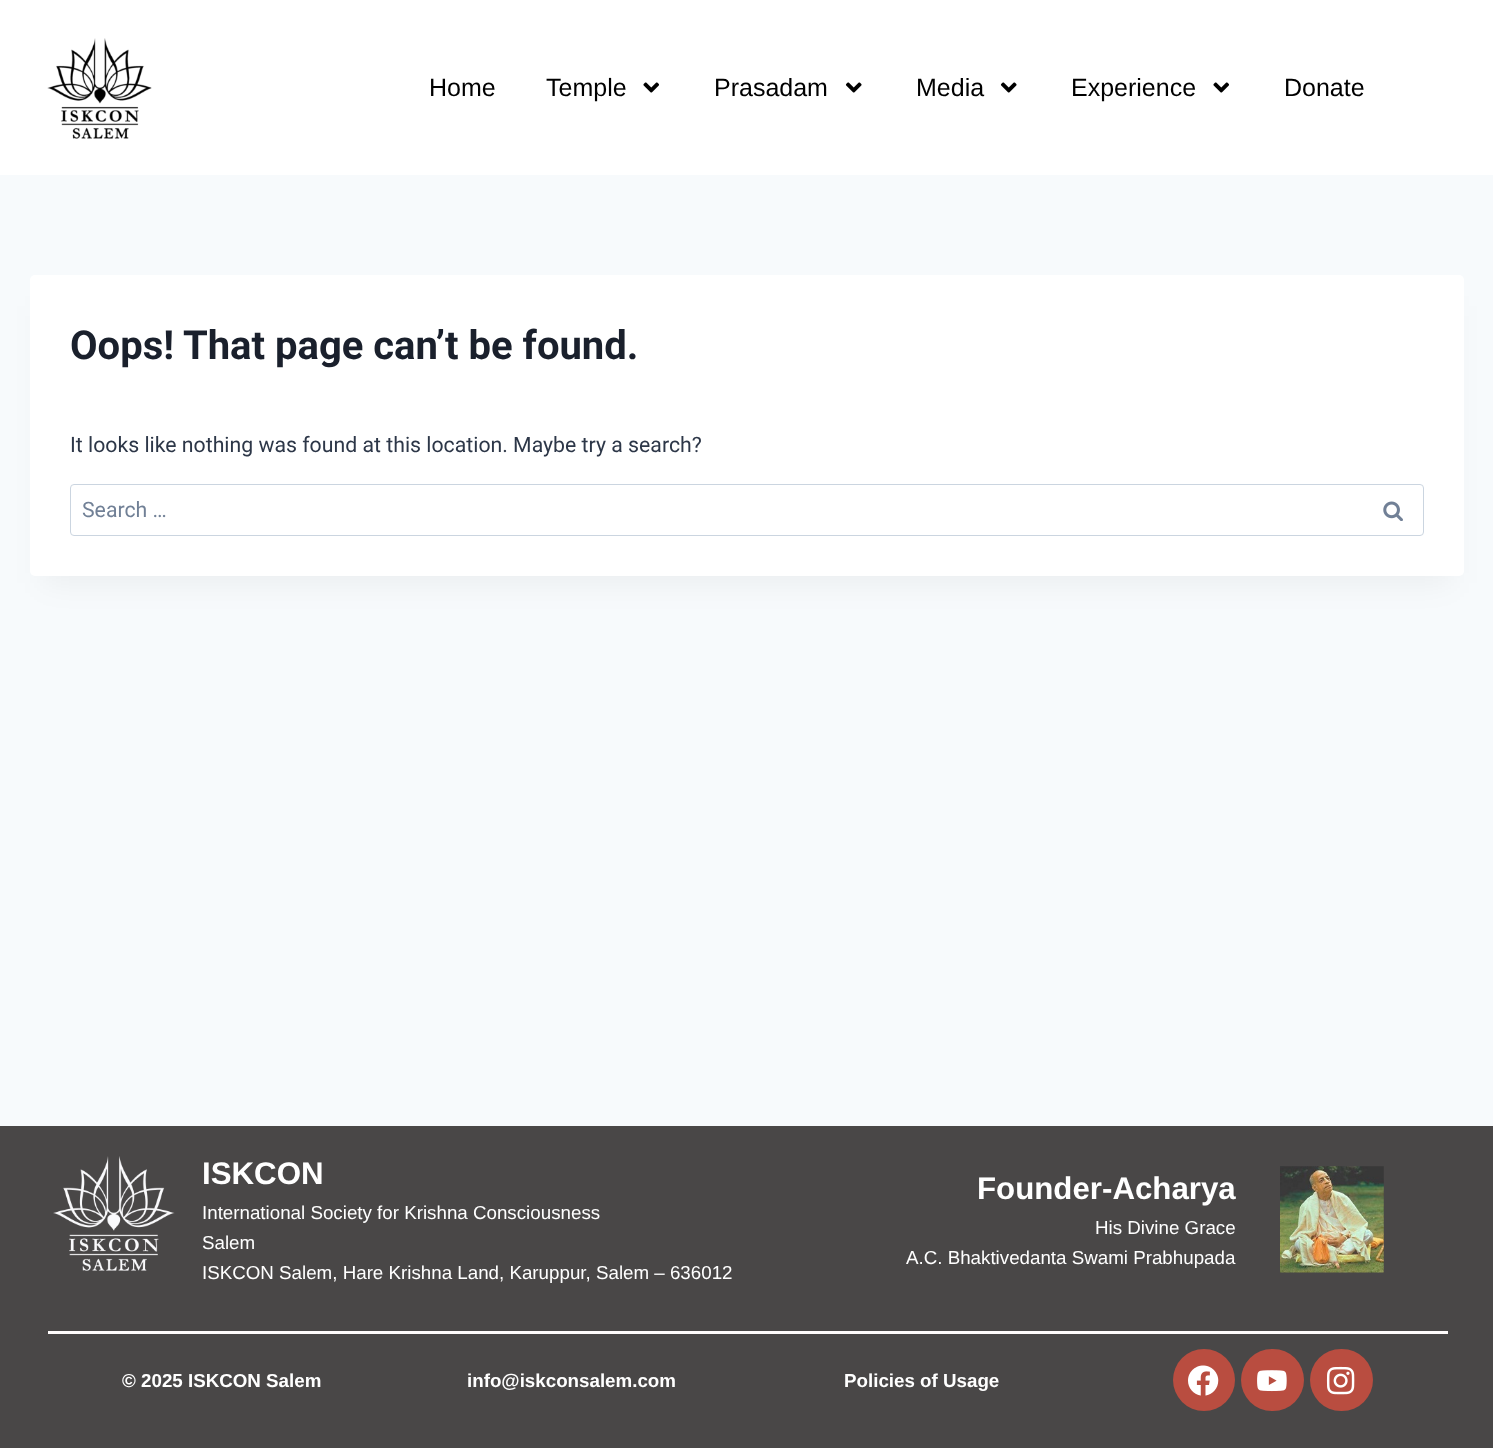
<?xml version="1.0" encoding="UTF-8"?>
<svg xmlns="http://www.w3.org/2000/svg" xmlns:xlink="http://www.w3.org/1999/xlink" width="1493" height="1448">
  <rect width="100%" height="100%" fill="#f7fafc" />
  <rect width="1493" height="175" fill="#ffffff" />
  <image x="47" y="38" width="105" height="101" xlink:href="image1.png" />
  <image x="643" y="82" width="16" height="11" xlink:href="image2.png" />
  <image x="845" y="82" width="17" height="11" xlink:href="image3.png" />
  <image x="1000" y="82" width="17" height="11" xlink:href="image3.png" />
  <image x="1213" y="82" width="16" height="11" xlink:href="image2.png" />
  <rect x="43" y="306" width="1408" height="277" fill="#000000" fill-opacity="0.05" filter="blur(15.5px)" />
  <rect x="30" y="275" width="1434" height="301" rx="5" fill="#ffffff" />
  <rect x="70.5" y="484.5" width="1353" height="51" rx="3.5" fill="none" stroke="#cbd5e0" />
  <image x="1383" y="501" width="20" height="20" xlink:href="image4.png" />
  <rect y="1126" width="1493" height="322" fill="#494747" />
  <image x="53" y="1156" width="122" height="115" xlink:href="image5.png" />
  <image x="1280" y="1166" width="104" height="107" xlink:href="image6.png" />
  <rect x="48" y="1331" width="1400" height="3" fill="#fffcfc" />
  <circle cx="1204" cy="1380" r="31" fill="#b94d40" />
  <image x="1188" y="1365" width="31" height="31" xlink:href="image7.png" />
  <rect x="1241" y="1349" width="63" height="62" rx="31" fill="#b94d40" />
  <image x="1257" y="1370" width="30" height="22" xlink:href="image8.png" />
  <rect x="1310" y="1349" width="63" height="62" rx="31" fill="#b94d40" />
  <image x="1326" y="1366" width="29" height="29" xlink:href="image9.png" />
  <text x="429" y="96" style="font-family: Liberation Sans; font-size: 25px; fill: #000000">Home</text>
  <text x="546" y="96" style="font-family: Liberation Sans; font-size: 25px; fill: #000000">Temple</text>
  <text x="714" y="96" style="font-family: Liberation Sans; font-size: 25px; fill: #000000">Prasadam</text>
  <text x="916" y="96" style="font-family: Liberation Sans; font-size: 25px; fill: #000000">Media</text>
  <text x="1071" y="96" style="font-family: Liberation Sans; font-size: 25px; fill: #000000">Experience</text>
  <text x="1284" y="96" style="font-family: Liberation Sans; font-size: 25px; fill: #000000">Donate</text>
  <text x="70" y="359" style="font-family: Roboto; font-size: 40px; font-weight: bold; fill: #1a202c">Oops! That page can’t be found.</text>
  <text x="70" y="452" style="font-family: Roboto; font-size: 21.25px; fill: #2d3748">It looks like nothing was found at this location. Maybe try a search?</text>
  <text x="82" y="517" style="font-family: Roboto; font-size: 21.25px; fill: #718096">Search …</text>
  <text x="202" y="1184" style="font-family: Liberation Sans; font-size: 31.25px; font-weight: bold; fill: #ffffff">ISKCON</text>
  <text x="202" y="1219" style="font-family: Liberation Sans; font-size: 18.75px; fill: #ffffff">International Society for Krishna Consciousness</text>
  <text x="202" y="1249" style="font-family: Liberation Sans; font-size: 18.75px; fill: #ffffff">Salem</text>
  <text x="202" y="1279" style="font-family: Liberation Sans; font-size: 18.75px; fill: #ffffff">ISKCON Salem, Hare Krishna Land, Karuppur, Salem – 636012</text>
  <text x="977" y="1199" style="font-family: Liberation Sans; font-size: 31.25px; font-weight: bold; fill: #ffffff">Founder-Acharya</text>
  <text x="1095" y="1234" style="font-family: Liberation Sans; font-size: 18.75px; fill: #ffffff">His Divine Grace</text>
  <text x="906" y="1264" style="font-family: Liberation Sans; font-size: 18.75px; fill: #ffffff">A.C. Bhaktivedanta Swami Prabhupada</text>
  <text x="122" y="1387" style="font-family: Liberation Sans; font-size: 18.75px; font-weight: bold; fill: #ffffff">© 2025 ISKCON Salem</text>
  <text x="467" y="1387" style="font-family: Liberation Sans; font-size: 18.75px; font-weight: bold; fill: #ffffff">info@iskconsalem.com</text>
  <text x="844" y="1387" style="font-family: Liberation Sans; font-size: 18.75px; font-weight: bold; fill: #ffffff">Policies of Usage</text>
</svg>
